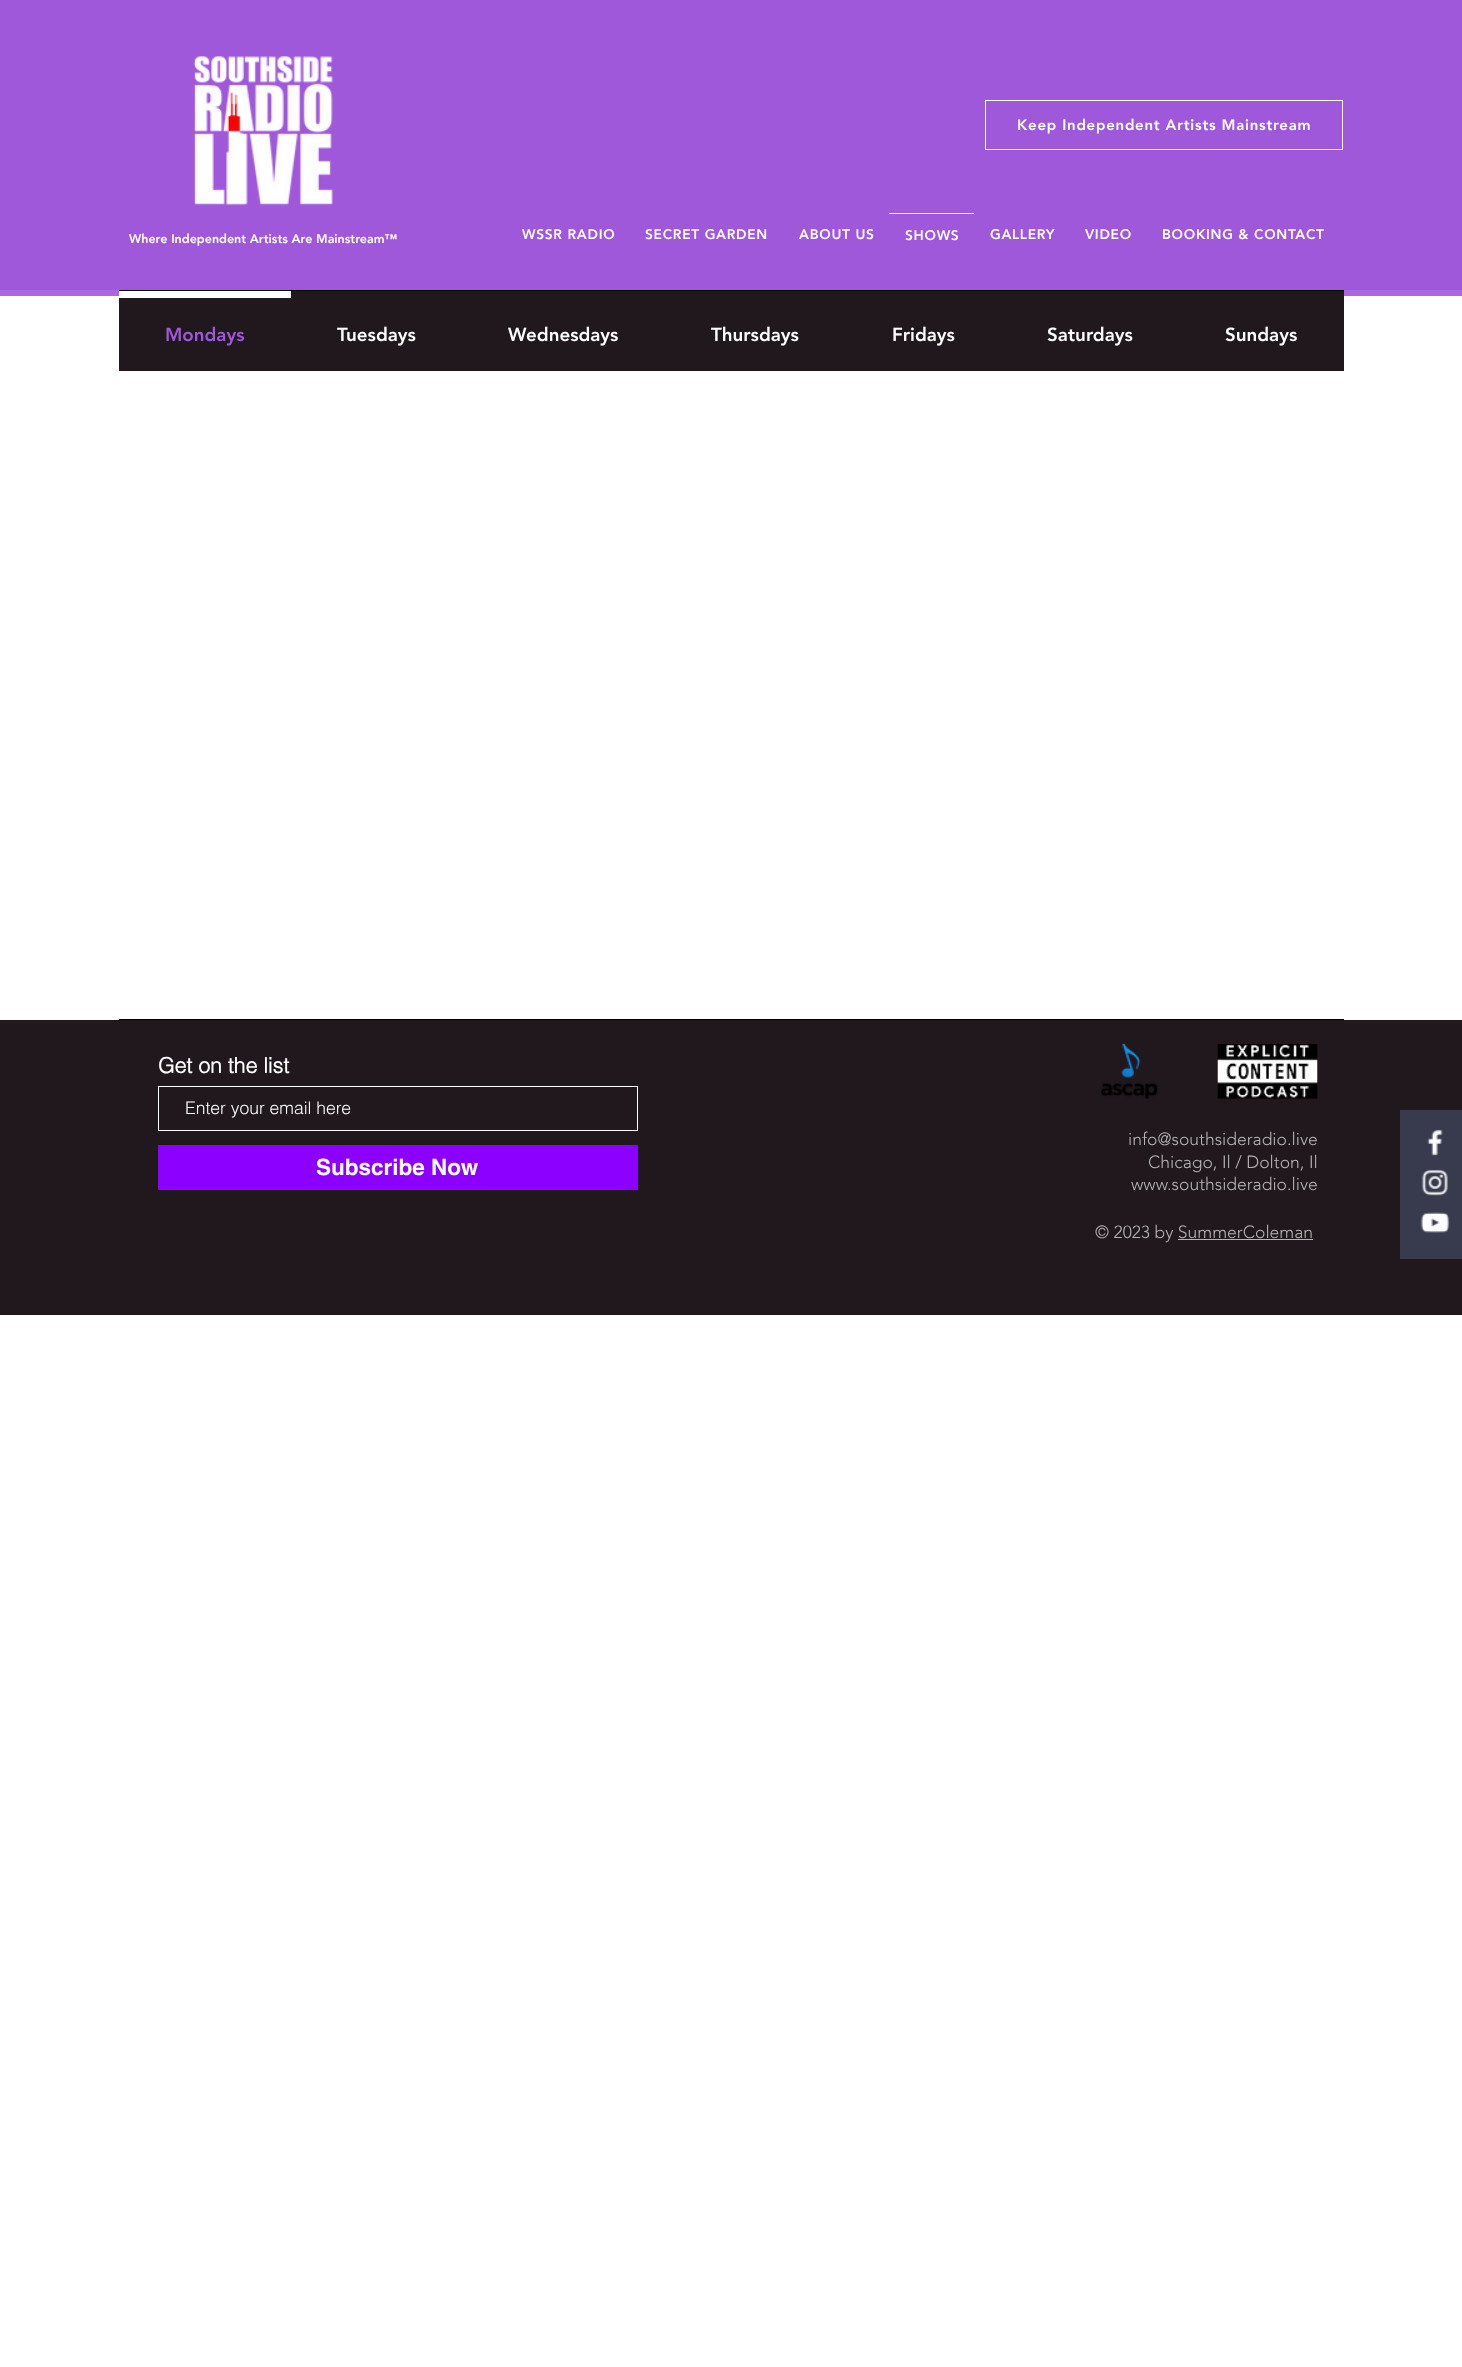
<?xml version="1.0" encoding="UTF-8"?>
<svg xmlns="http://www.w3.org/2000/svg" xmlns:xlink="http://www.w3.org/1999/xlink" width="1462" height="2367">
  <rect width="100%" height="100%" fill="#ffffff" />
  <rect width="1462" height="290" fill="#a058db" />
  <rect y="290" width="1462" height="6" fill="#a968de" />
  <image x="193" y="56" width="140" height="150" xlink:href="image1.png" />
  <rect x="985.5" y="100.5" width="357" height="49" fill="none" stroke="#ffffff" />
  <rect x="889" y="213" width="85" height="1" fill="#ffffff" />
  <rect x="119" y="291" width="1225" height="80" fill="#21181d" />
  <rect x="119" y="290" width="1225" height="1" fill="#000000" />
  <rect x="119" y="291" width="172" height="7" fill="#ffffff" />
  <rect x="119" y="1019" width="1225" height="1" fill="#000000" />
  <rect y="1020" width="1462" height="295" fill="#21181d" />
  <rect x="158.5" y="1086.5" width="479" height="44" fill="none" stroke="#ffffff" />
  <rect x="158" y="1145" width="480" height="45" fill="#8c00ff" />
  <image x="1101" y="1043" width="57" height="56" xlink:href="image2.png" />
  <image x="1217" y="1044" width="101" height="55" xlink:href="image3.png" />
  <rect x="1178" y="1239" width="135" height="1" fill="#b5b5b5" />
  <rect x="1400" y="1110" width="62" height="149" fill="#373b4d" />
  <image x="1427" y="1129" width="16" height="27" xlink:href="image4.png" />
  <image x="1421" y="1169" width="27" height="27" xlink:href="image5.png" />
  <image x="1420" y="1212" width="30" height="21" xlink:href="image6.png" />
  <text x="1017" y="130" style="font-family: 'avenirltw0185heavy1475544'; font-size: 15px; font-weight: 900; letter-spacing: 0.75px; fill: #ffffff">Keep Independent Artists Mainstream</text>
  <text x="129" y="243" style="font-family: 'avenirltw0185heavy1475544'; font-size: 12.5px; font-weight: 900; fill: #ffffff">Where Independent Artists Are Mainstream™</text>
  <text x="522" y="239" style="font-family: 'avenirltw0185heavy1475544'; font-size: 13.75px; font-weight: 900; letter-spacing: 0.7px; fill: #ffffff">WSSR RADIO</text>
  <text x="645" y="239" style="font-family: 'avenirltw0185heavy1475544'; font-size: 13.75px; font-weight: 900; letter-spacing: 0.7px; fill: #ffffff">SECRET GARDEN</text>
  <text x="799" y="239" style="font-family: 'avenirltw0185heavy1475544'; font-size: 13.75px; font-weight: 900; letter-spacing: 0.7px; fill: #ffffff">ABOUT US</text>
  <text x="905" y="240" style="font-family: 'avenirltw0185heavy1475544'; font-size: 13.75px; font-weight: 900; letter-spacing: 0.7px; fill: #ffffff">SHOWS</text>
  <text x="990" y="239" style="font-family: 'avenirltw0185heavy1475544'; font-size: 13.75px; font-weight: 900; letter-spacing: 0.7px; fill: #ffffff">GALLERY</text>
  <text x="1085" y="239" style="font-family: 'avenirltw0185heavy1475544'; font-size: 13.75px; font-weight: 900; letter-spacing: 0.7px; fill: #ffffff">VIDEO</text>
  <text x="1162" y="239" style="font-family: 'avenirltw0185heavy1475544'; font-size: 13.75px; font-weight: 900; letter-spacing: 0.7px; fill: #ffffff">BOOKING &amp; CONTACT</text>
  <text x="165" y="341" style="font-family: 'avenirltw0185heavy1475544'; font-size: 18.75px; font-weight: 900; fill: #a058db">Mondays</text>
  <text x="337" y="341" style="font-family: 'avenirltw0185heavy1475544'; font-size: 18.75px; font-weight: 900; fill: #ffffff">Tuesdays</text>
  <text x="508" y="341" style="font-family: 'avenirltw0185heavy1475544'; font-size: 18.75px; font-weight: 900; fill: #ffffff">Wednesdays</text>
  <text x="711" y="341" style="font-family: 'avenirltw0185heavy1475544'; font-size: 18.75px; font-weight: 900; fill: #ffffff">Thursdays</text>
  <text x="892" y="341" style="font-family: 'avenirltw0185heavy1475544'; font-size: 18.75px; font-weight: 900; fill: #ffffff">Fridays</text>
  <text x="1047" y="341" style="font-family: 'avenirltw0185heavy1475544'; font-size: 18.75px; font-weight: 900; fill: #ffffff">Saturdays</text>
  <text x="1225" y="341" style="font-family: 'avenirltw0185heavy1475544'; font-size: 18.75px; font-weight: 900; fill: #ffffff">Sundays</text>
  <text x="158" y="1073" style="font-family: helvetica; font-size: 21.25px; font-weight: bold; fill: #ffffff">Get on the list</text>
  <text x="185" y="1114" style="font-family: helvetica; font-size: 17.5px; font-weight: 300; fill: #ffffff">Enter your email here</text>
  <text x="316" y="1175" style="font-family: 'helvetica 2'; font-size: 22.5px; font-weight: bold; fill: #ffffff">Subscribe Now</text>
  <text x="1128" y="1145" style="font-family: 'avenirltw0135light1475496'; font-size: 17.5px; font-weight: 300; fill: #b5b5b5">info@southsideradio.live</text>
  <text x="1148" y="1168" style="font-family: 'avenirltw0135light1475496'; font-size: 17.5px; font-weight: 300; fill: #b5b5b5">Chicago, Il / Dolton, Il</text>
  <text x="1131" y="1190" style="font-family: 'avenirltw0135light1475496'; font-size: 17.5px; font-weight: 300; fill: #b5b5b5">www.southsideradio.live</text>
  <text x="1095" y="1238" style="font-family: 'avenirltw0135light1475496'; font-size: 17.5px; font-weight: 300; fill: #b5b5b5">© 2023 by SummerColeman</text>
</svg>
